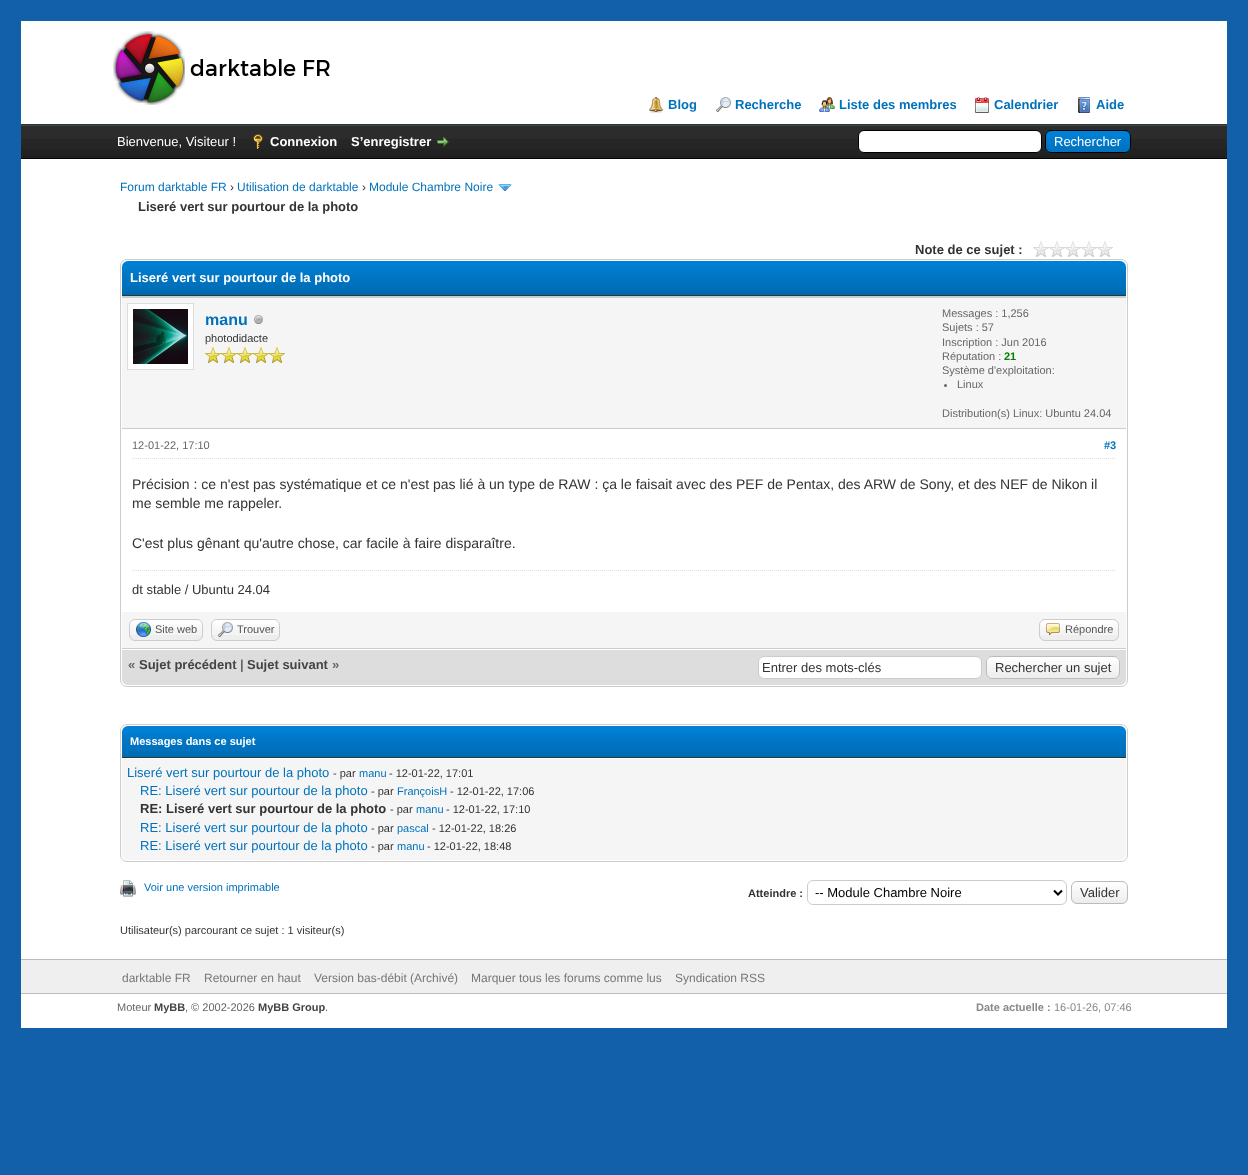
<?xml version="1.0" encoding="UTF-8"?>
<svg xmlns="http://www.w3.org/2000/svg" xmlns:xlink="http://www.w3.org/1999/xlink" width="1248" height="1175">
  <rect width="100%" height="100%" fill="#125faa" />
  <rect x="21" y="21" width="1206" height="1007" fill="#ffffff" />
  <rect x="21" y="124" width="1206" height="1" fill="#263c30" />
  <image x="113" y="31" width="217" height="74" xlink:href="image1.png" />
  <image x="649" y="97" width="14" height="16" xlink:href="image2.png" />
  <image x="716" y="97" width="15" height="15" xlink:href="image3.png" />
  <image x="819" y="97" width="16" height="15" xlink:href="image4.png" />
  <image x="975" y="97" width="14" height="16" xlink:href="image5.png" />
  <image x="1078" y="97" width="12" height="16" xlink:href="image6.png" />
  <image x="21" y="126" width="1206" height="32" xlink:href="image7.png" />
  <rect x="21" y="125" width="1206" height="1" fill="#444444" />
  <rect x="21" y="158" width="1206" height="1" fill="#000000" />
  <image x="253" y="134" width="10" height="15" xlink:href="image8.png" />
  <image x="437" y="137" width="12" height="10" xlink:href="image9.png" />
  <rect x="858.5" y="130.5" width="183" height="22" rx="5.5" fill="#ffffff" stroke="#000000" />
  <image x="1045" y="131" width="86" height="22" xlink:href="image10.png" />
  <rect x="1045.5" y="130.5" width="85" height="22" rx="5.5" fill="none" stroke="#000000" />
  <image x="498" y="184" width="14" height="7" xlink:href="image11.png" />
  <image x="1033" y="241" width="80" height="16" xlink:href="image12.png" />
  <rect x="120.5" y="259.5" width="1007" height="427" rx="6.5" fill="none" stroke="#cccccc" />
  <image x="122" y="261" width="1004" height="34" xlink:href="image13.png" />
  <rect x="122" y="295" width="1004" height="1" fill="#263c30" />
  <rect x="122" y="298" width="1004" height="130" fill="#f5f5f5" />
  <rect x="122" y="296" width="1004" height="2" fill="#cccccc" />
  <rect x="122" y="428" width="1004" height="1" fill="#cccccc" />
  <rect x="127.5" y="303.5" width="66" height="66" fill="#ffffff" stroke="#dddddd" />
  <image x="133" y="309" width="55" height="55" xlink:href="image14.png" />
  <image x="254" y="315" width="9" height="9" xlink:href="image15.png" />
  <image x="205" y="347" width="16" height="16" xlink:href="image16.png" />
  <image x="221" y="347" width="16" height="16" xlink:href="image16.png" />
  <image x="237" y="347" width="16" height="16" xlink:href="image16.png" />
  <image x="253" y="347" width="16" height="16" xlink:href="image16.png" />
  <image x="269" y="347" width="16" height="16" xlink:href="image16.png" />
  <circle cx="945.5" cy="385.5" r="1.5" fill="#666666" />
  <path d="M 132 458.5 h 984" fill="none" stroke="#dddddd" stroke-dasharray="1 1" />
  <path d="M 132 570.5 h 984" fill="none" stroke="#dddddd" stroke-dasharray="1 1" />
  <rect x="122" y="612" width="1004" height="36" fill="#f5f5f5" />
  <rect x="122" y="648" width="1004" height="1" fill="#cccccc" />
  <rect x="129" y="619" width="74" height="22" rx="6" fill="#eeeeee" />
  <image x="129" y="620" width="74" height="15" xlink:href="image17.png" />
  <rect x="129.5" y="619.5" width="73" height="21" rx="5.5" fill="none" stroke="#cccccc" />
  <image x="136" y="622" width="15" height="15" xlink:href="image18.png" />
  <rect x="211" y="619" width="69" height="22" rx="6" fill="#eeeeee" />
  <image x="211" y="620" width="69" height="15" xlink:href="image19.png" />
  <rect x="211.5" y="619.5" width="68" height="21" rx="5.5" fill="none" stroke="#cccccc" />
  <image x="218" y="622" width="15" height="15" xlink:href="image20.png" />
  <rect x="1039" y="619" width="80" height="22" rx="6" fill="#eeeeee" />
  <image x="1039" y="620" width="80" height="15" xlink:href="image21.png" />
  <rect x="1039.5" y="619.5" width="79" height="21" rx="5.5" fill="none" stroke="#cccccc" />
  <image x="1046" y="623" width="14" height="12" xlink:href="image22.png" />
  <path d="M 122 649 h 1004 v 30 c 0 3.5 -2.5 6 -6 6 h -992 c -3.5 0 -6 -2.5 -6 -6 z" fill="#dddddd" />
  <rect x="122" y="649" width="1004" height="1" fill="#ffffff" />
  <rect x="758.5" y="656.5" width="223" height="22" rx="5.5" fill="#ffffff" stroke="#cccccc" />
  <rect x="986" y="656" width="134" height="23" rx="6" fill="#eeeeee" />
  <image x="986" y="657" width="134" height="18" xlink:href="image23.png" />
  <rect x="986.5" y="656.5" width="133" height="22" rx="5.5" fill="none" stroke="#bbbbbb" />
  <rect x="120.5" y="724.5" width="1007" height="137" rx="6.5" fill="none" stroke="#cccccc" />
  <image x="122" y="726" width="1004" height="31" xlink:href="image24.png" />
  <rect x="122" y="757" width="1004" height="1" fill="#263c30" />
  <path d="M 122 758 h 1004 v 96 c 0 3.5 -2.5 6 -6 6 h -992 c -3.5 0 -6 -2.5 -6 -6 z" fill="#f5f5f5" />
  <rect x="122" y="758" width="1004" height="1" fill="#ffffff" />
  <image x="120" y="880" width="16" height="17" xlink:href="image25.png" />
  <rect x="807.5" y="880.5" width="259" height="24" rx="5.5" fill="none" stroke="#cccccc" />
  <path d="M 1054 890.5 l 4 4 l 4 -4" fill="none" stroke="#000000" stroke-width="2" />
  <image x="1071" y="882" width="57" height="22" xlink:href="image26.png" />
  <rect x="1071.5" y="881.5" width="56" height="22" rx="5.5" fill="none" stroke="#bbbbbb" />
  <rect x="21" y="960" width="1206" height="33" fill="#efefef" />
  <rect x="21" y="959" width="1206" height="1" fill="#bbbbbb" />
  <rect x="21" y="993" width="1206" height="1" fill="#bbbbbb" />
  <text x="668" y="109" style="font-family: Liberation Sans; font-size: 13px; font-weight: bold; fill: #0072bc">Blog</text>
  <text x="735" y="109" style="font-family: Liberation Sans; font-size: 13px; font-weight: bold; fill: #0072bc">Recherche</text>
  <text x="839" y="109" style="font-family: Liberation Sans; font-size: 13px; font-weight: bold; fill: #0072bc">Liste des membres</text>
  <text x="994" y="109" style="font-family: Liberation Sans; font-size: 13px; font-weight: bold; fill: #0072bc">Calendrier</text>
  <text x="1096" y="109" style="font-family: Liberation Sans; font-size: 13px; font-weight: bold; fill: #0072bc">Aide</text>
  <text x="117" y="146" style="font-family: Liberation Sans; font-size: 13px; fill: #ffffff">Bienvenue, Visiteur !</text>
  <text x="270" y="146" style="font-family: Liberation Sans; font-size: 13px; font-weight: bold; fill: #ffffff">Connexion</text>
  <text x="351" y="146" style="font-family: Liberation Sans; font-size: 13px; font-weight: bold; fill: #ffffff">S’enregistrer</text>
  <text x="1054" y="146" style="font-family: Liberation Sans; font-size: 13px; fill: #ffffff">Rechercher</text>
  <text x="120" y="191" style="font-family: Liberation Sans; font-size: 12px; fill: #0072bc">Forum darktable FR</text>
  <text x="230" y="191" style="font-family: Liberation Sans; font-size: 12px; fill: #333333">›</text>
  <text x="237" y="191" style="font-family: Liberation Sans; font-size: 12px; fill: #0072bc">Utilisation de darktable</text>
  <text x="362" y="191" style="font-family: Liberation Sans; font-size: 12px; fill: #333333">›</text>
  <text x="369" y="191" style="font-family: Liberation Sans; font-size: 12px; fill: #0072bc">Module Chambre Noire</text>
  <text x="138" y="211" style="font-family: Liberation Sans; font-size: 13px; font-weight: bold; fill: #333333">Liseré vert sur pourtour de la photo</text>
  <text x="915" y="254" style="font-family: Liberation Sans; font-size: 13px; font-weight: bold; fill: #333333">Note de ce sujet :</text>
  <text x="130" y="282" style="font-family: Liberation Sans; font-size: 13px; font-weight: bold; fill: #ffffff">Liseré vert sur pourtour de la photo</text>
  <text x="205" y="325" style="font-family: Liberation Sans; font-size: 16px; font-weight: bold; fill: #0072bc">manu</text>
  <text x="205" y="342" style="font-family: Liberation Sans; font-size: 11px; fill: #333333">photodidacte</text>
  <text x="942" y="317" style="font-family: Liberation Sans; font-size: 11px; fill: #666666">Messages : 1,256</text>
  <text x="942" y="331" style="font-family: Liberation Sans; font-size: 11px; fill: #666666">Sujets : 57</text>
  <text x="942" y="346" style="font-family: Liberation Sans; font-size: 11px; fill: #666666">Inscription : Jun 2016</text>
  <text x="942" y="360" style="font-family: Liberation Sans; font-size: 11px; fill: #666666">Réputation :</text>
  <text x="1004" y="360" style="font-family: Liberation Sans; font-size: 11px; font-weight: bold; fill: #008000">21</text>
  <text x="942" y="374" style="font-family: Liberation Sans; font-size: 11px; fill: #666666">Système d'exploitation:</text>
  <text x="957" y="388" style="font-family: Liberation Sans; font-size: 11px; fill: #666666">Linux</text>
  <text x="942" y="417" style="font-family: Liberation Sans; font-size: 11px; fill: #666666">Distribution(s) Linux: Ubuntu 24.04</text>
  <text x="132" y="449" style="font-family: Liberation Sans; font-size: 11px; fill: #666666">12-01-22, 17:10</text>
  <text x="1104" y="449" style="font-family: Liberation Sans; font-size: 11px; font-weight: bold; fill: #0072bc">#3</text>
  <text x="132" y="489" style="font-family: Liberation Sans; font-size: 14px; fill: #333333">Précision : ce n'est pas systématique et ce n'est pas lié à un type de RAW : ça le faisait avec des PEF de Pentax, des ARW de Sony, et des NEF de Nikon il</text>
  <text x="132" y="508" style="font-family: Liberation Sans; font-size: 14px; fill: #333333">me semble me rappeler.</text>
  <text x="132" y="548" style="font-family: Liberation Sans; font-size: 14px; fill: #333333">C'est plus gênant qu'autre chose, car facile à faire disparaître.</text>
  <text x="132" y="594" style="font-family: Liberation Sans; font-size: 13px; fill: #333333">dt stable / Ubuntu 24.04</text>
  <text x="155" y="633" style="font-family: Liberation Sans; font-size: 11px; fill: #555555">Site web</text>
  <text x="237" y="633" style="font-family: Liberation Sans; font-size: 11px; fill: #555555">Trouver</text>
  <text x="1065" y="633" style="font-family: Liberation Sans; font-size: 11px; fill: #555555">Répondre</text>
  <text x="128" y="669" style="font-family: Liberation Sans; font-size: 13px; font-weight: bold; fill: #666666">«</text>
  <text x="139" y="669" style="font-family: Liberation Sans; font-size: 13px; font-weight: bold; fill: #444444">Sujet précédent</text>
  <text x="240" y="669" style="font-family: Liberation Sans; font-size: 13px; font-weight: bold; fill: #666666">|</text>
  <text x="247" y="669" style="font-family: Liberation Sans; font-size: 13px; font-weight: bold; fill: #444444">Sujet suivant</text>
  <text x="332" y="669" style="font-family: Liberation Sans; font-size: 13px; font-weight: bold; fill: #666666">»</text>
  <text x="762" y="672" style="font-family: Liberation Sans; font-size: 13px; fill: #333333">Entrer des mots-clés</text>
  <text x="995" y="672" style="font-family: Liberation Sans; font-size: 13px; fill: #333333">Rechercher un sujet</text>
  <text x="130" y="745" style="font-family: Liberation Sans; font-size: 11px; font-weight: bold; fill: #ffffff">Messages dans ce sujet</text>
  <text x="127" y="777" style="font-family: Liberation Sans; font-size: 13px; fill: #0072bc">Liseré vert sur pourtour de la photo</text>
  <text x="333" y="777" style="font-family: Liberation Sans; font-size: 11px; fill: #333333">- par</text>
  <text x="359" y="777" style="font-family: Liberation Sans; font-size: 11px; fill: #0072bc">manu</text>
  <text x="389" y="777" style="font-family: Liberation Sans; font-size: 11px; fill: #333333">- 12-01-22, 17:01</text>
  <text x="140" y="795" style="font-family: Liberation Sans; font-size: 13px; fill: #0072bc">RE: Liseré vert sur pourtour de la photo</text>
  <text x="371" y="795" style="font-family: Liberation Sans; font-size: 11px; fill: #333333">- par</text>
  <text x="397" y="795" style="font-family: Liberation Sans; font-size: 11px; fill: #0072bc">FrançoisH</text>
  <text x="450" y="795" style="font-family: Liberation Sans; font-size: 11px; fill: #333333">- 12-01-22, 17:06</text>
  <text x="140" y="813" style="font-family: Liberation Sans; font-size: 13px; font-weight: bold; fill: #333333">RE: Liseré vert sur pourtour de la photo</text>
  <text x="390" y="813" style="font-family: Liberation Sans; font-size: 11px; fill: #333333">- par</text>
  <text x="416" y="813" style="font-family: Liberation Sans; font-size: 11px; fill: #0072bc">manu</text>
  <text x="446" y="813" style="font-family: Liberation Sans; font-size: 11px; fill: #333333">- 12-01-22, 17:10</text>
  <text x="140" y="832" style="font-family: Liberation Sans; font-size: 13px; fill: #0072bc">RE: Liseré vert sur pourtour de la photo</text>
  <text x="371" y="832" style="font-family: Liberation Sans; font-size: 11px; fill: #333333">- par</text>
  <text x="397" y="832" style="font-family: Liberation Sans; font-size: 11px; fill: #0072bc">pascal</text>
  <text x="432" y="832" style="font-family: Liberation Sans; font-size: 11px; fill: #333333">- 12-01-22, 18:26</text>
  <text x="140" y="850" style="font-family: Liberation Sans; font-size: 13px; fill: #0072bc">RE: Liseré vert sur pourtour de la photo</text>
  <text x="371" y="850" style="font-family: Liberation Sans; font-size: 11px; fill: #333333">- par</text>
  <text x="397" y="850" style="font-family: Liberation Sans; font-size: 11px; fill: #0072bc">manu</text>
  <text x="427" y="850" style="font-family: Liberation Sans; font-size: 11px; fill: #333333">- 12-01-22, 18:48</text>
  <text x="144" y="891" style="font-family: Liberation Sans; font-size: 11px; fill: #0072bc">Voir une version imprimable</text>
  <text x="748" y="897" style="font-family: Liberation Sans; font-size: 11px; font-weight: bold; fill: #333333">Atteindre :</text>
  <text x="815" y="897" style="font-family: Liberation Sans; font-size: 13px; fill: #000000">-- Module Chambre Noire</text>
  <text x="1080" y="897" style="font-family: Liberation Sans; font-size: 13px; fill: #333333">Valider</text>
  <text x="120" y="934" style="font-family: Liberation Sans; font-size: 11px; fill: #333333">Utilisateur(s) parcourant ce sujet : 1 visiteur(s)</text>
  <text x="122" y="982" style="font-family: Liberation Sans; font-size: 12px; fill: #777777">darktable FR</text>
  <text x="204" y="982" style="font-family: Liberation Sans; font-size: 12px; fill: #777777">Retourner en haut</text>
  <text x="314" y="982" style="font-family: Liberation Sans; font-size: 12px; fill: #777777">Version bas-débit (Archivé)</text>
  <text x="471" y="982" style="font-family: Liberation Sans; font-size: 12px; fill: #777777">Marquer tous les forums comme lus</text>
  <text x="675" y="982" style="font-family: Liberation Sans; font-size: 12px; fill: #777777">Syndication RSS</text>
  <text x="117" y="1011" style="font-family: Liberation Sans; font-size: 11px; fill: #666666">Moteur</text>
  <text x="154" y="1011" style="font-family: Liberation Sans; font-size: 11px; font-weight: bold; fill: #444444">MyBB</text>
  <text x="185" y="1011" style="font-family: Liberation Sans; font-size: 11px; fill: #666666">, © 2002-2026</text>
  <text x="258" y="1011" style="font-family: Liberation Sans; font-size: 11px; font-weight: bold; fill: #444444">MyBB Group</text>
  <text x="325" y="1011" style="font-family: Liberation Sans; font-size: 11px; fill: #666666">.</text>
  <text x="976" y="1011" style="font-family: Liberation Sans; font-size: 11px; font-weight: bold; fill: #888888">Date actuelle :</text>
  <text x="1054" y="1011" style="font-family: Liberation Sans; font-size: 11px; fill: #888888">16-01-26, 07:46</text>
</svg>
